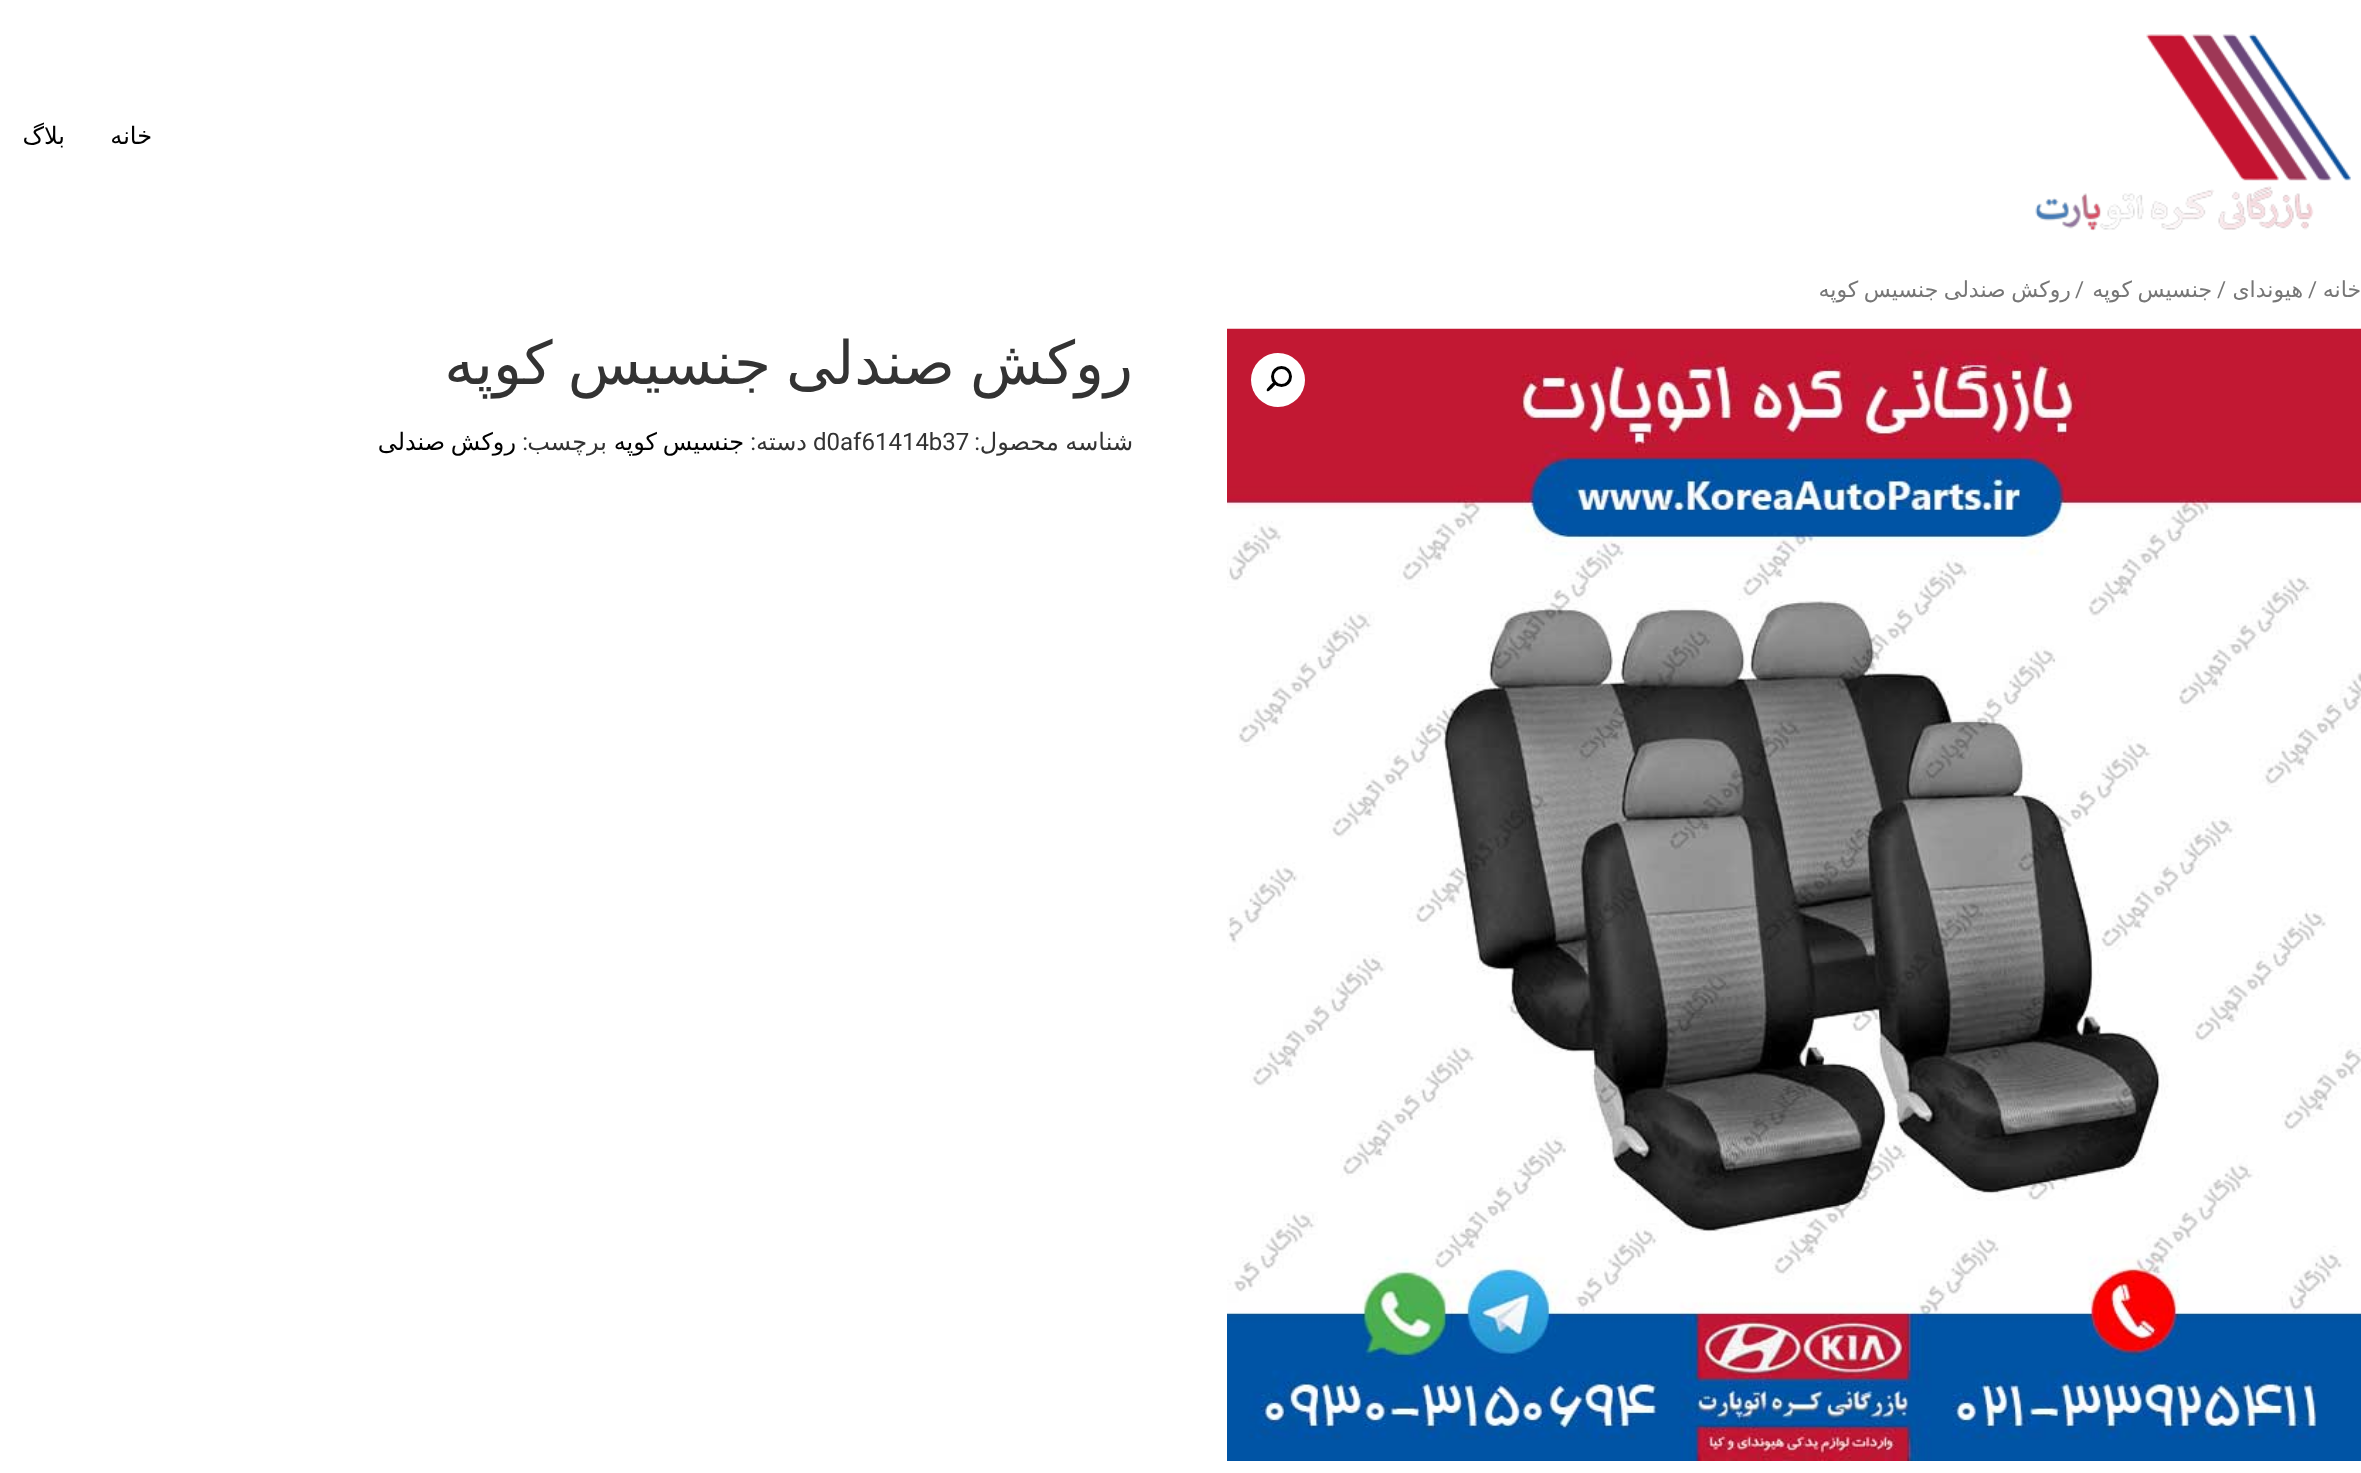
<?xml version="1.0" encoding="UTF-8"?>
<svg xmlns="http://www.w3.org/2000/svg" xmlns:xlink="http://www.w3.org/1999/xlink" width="2361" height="1473">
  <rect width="100%" height="100%" fill="#ffffff" />
  <image x="2035" y="34" width="316" height="197" xlink:href="image1.png" />
  <image x="1227" y="328" width="1134" height="1133" xlink:href="image2.png" />
  <circle cx="1278" cy="380" r="27" fill="#ffffff" />
  <circle cx="1281.5" cy="376.5" r="9" fill="none" stroke="#000000" stroke-width="3" />
  <path d="M 1275.5 382.5 c 1.5 1.5 -2.5 4.5 -3 5.5 c -1 0.5 -4 4.5 -5.5 3 c -1.5 -2 2.5 -4.5 3 -5.5 c 1 -1 4 -5 5.5 -3 z" fill="#000000" />
  <text x="152" y="144" style="font-family: DejaVu Sans; font-size: 24px; direction: rtl; fill: #000000">خانه</text>
  <text x="65" y="144" style="font-family: DejaVu Sans; font-size: 24px; direction: rtl; fill: #000000">بلاگ</text>
  <text x="2361" y="297" style="font-family: DejaVu Sans; font-size: 22px; direction: rtl; fill: #767676">خانه</text>
  <text x="2308" y="297" style="font-family: Roboto; font-size: 22px; fill: #767676">/</text>
  <text x="2303" y="297" style="font-family: DejaVu Sans; font-size: 22px; direction: rtl; fill: #767676">هیوندای</text>
  <text x="2217" y="297" style="font-family: Roboto; font-size: 22px; fill: #767676">/</text>
  <text x="2212" y="297" word-spacing="-1.5" style="font-family: DejaVu Sans; font-size: 22px; direction: rtl; fill: #767676">جنسیس کوپه</text>
  <text x="2084" y="297" style="font-family: Roboto; font-size: 22px; direction: rtl; fill: #767676">/</text>
  <text x="2071" y="297" word-spacing="-1.5" style="font-family: DejaVu Sans; font-size: 22px; direction: rtl; fill: #767676">روکش صندلی جنسیس کوپه</text>
  <text x="1133" y="384" word-spacing="-4" style="font-family: DejaVu Sans; font-size: 60px; direction: rtl; fill: #333333">روکش صندلی جنسیس کوپه</text>
  <text x="1133" y="450" word-spacing="-1" style="font-family: DejaVu Sans; font-size: 24px; direction: rtl; fill: #333333">شناسه محصول</text>
  <text x="980" y="450" style="font-family: Roboto; font-size: 24px; direction: rtl; fill: #333333">:</text>
  <text x="813" y="450" style="font-family: Roboto; font-size: 24px; fill: #333333">d0af61414b37</text>
  <text x="807" y="450" style="font-family: DejaVu Sans; font-size: 24px; direction: rtl; fill: #333333">دسته</text>
  <text x="756" y="450" style="font-family: Roboto; font-size: 24px; direction: rtl; fill: #333333">:</text>
  <text x="744" y="450" word-spacing="-2" style="font-family: DejaVu Sans; font-size: 24px; direction: rtl; fill: #000000">جنسیس کوپه</text>
  <text x="607" y="450" style="font-family: DejaVu Sans; font-size: 24px; direction: rtl; fill: #333333">برچسب</text>
  <text x="528" y="450" style="font-family: Roboto; font-size: 24px; direction: rtl; fill: #333333">:</text>
  <text x="516" y="450" word-spacing="-2" style="font-family: DejaVu Sans; font-size: 24px; direction: rtl; fill: #000000">روکش صندلی</text>
</svg>
